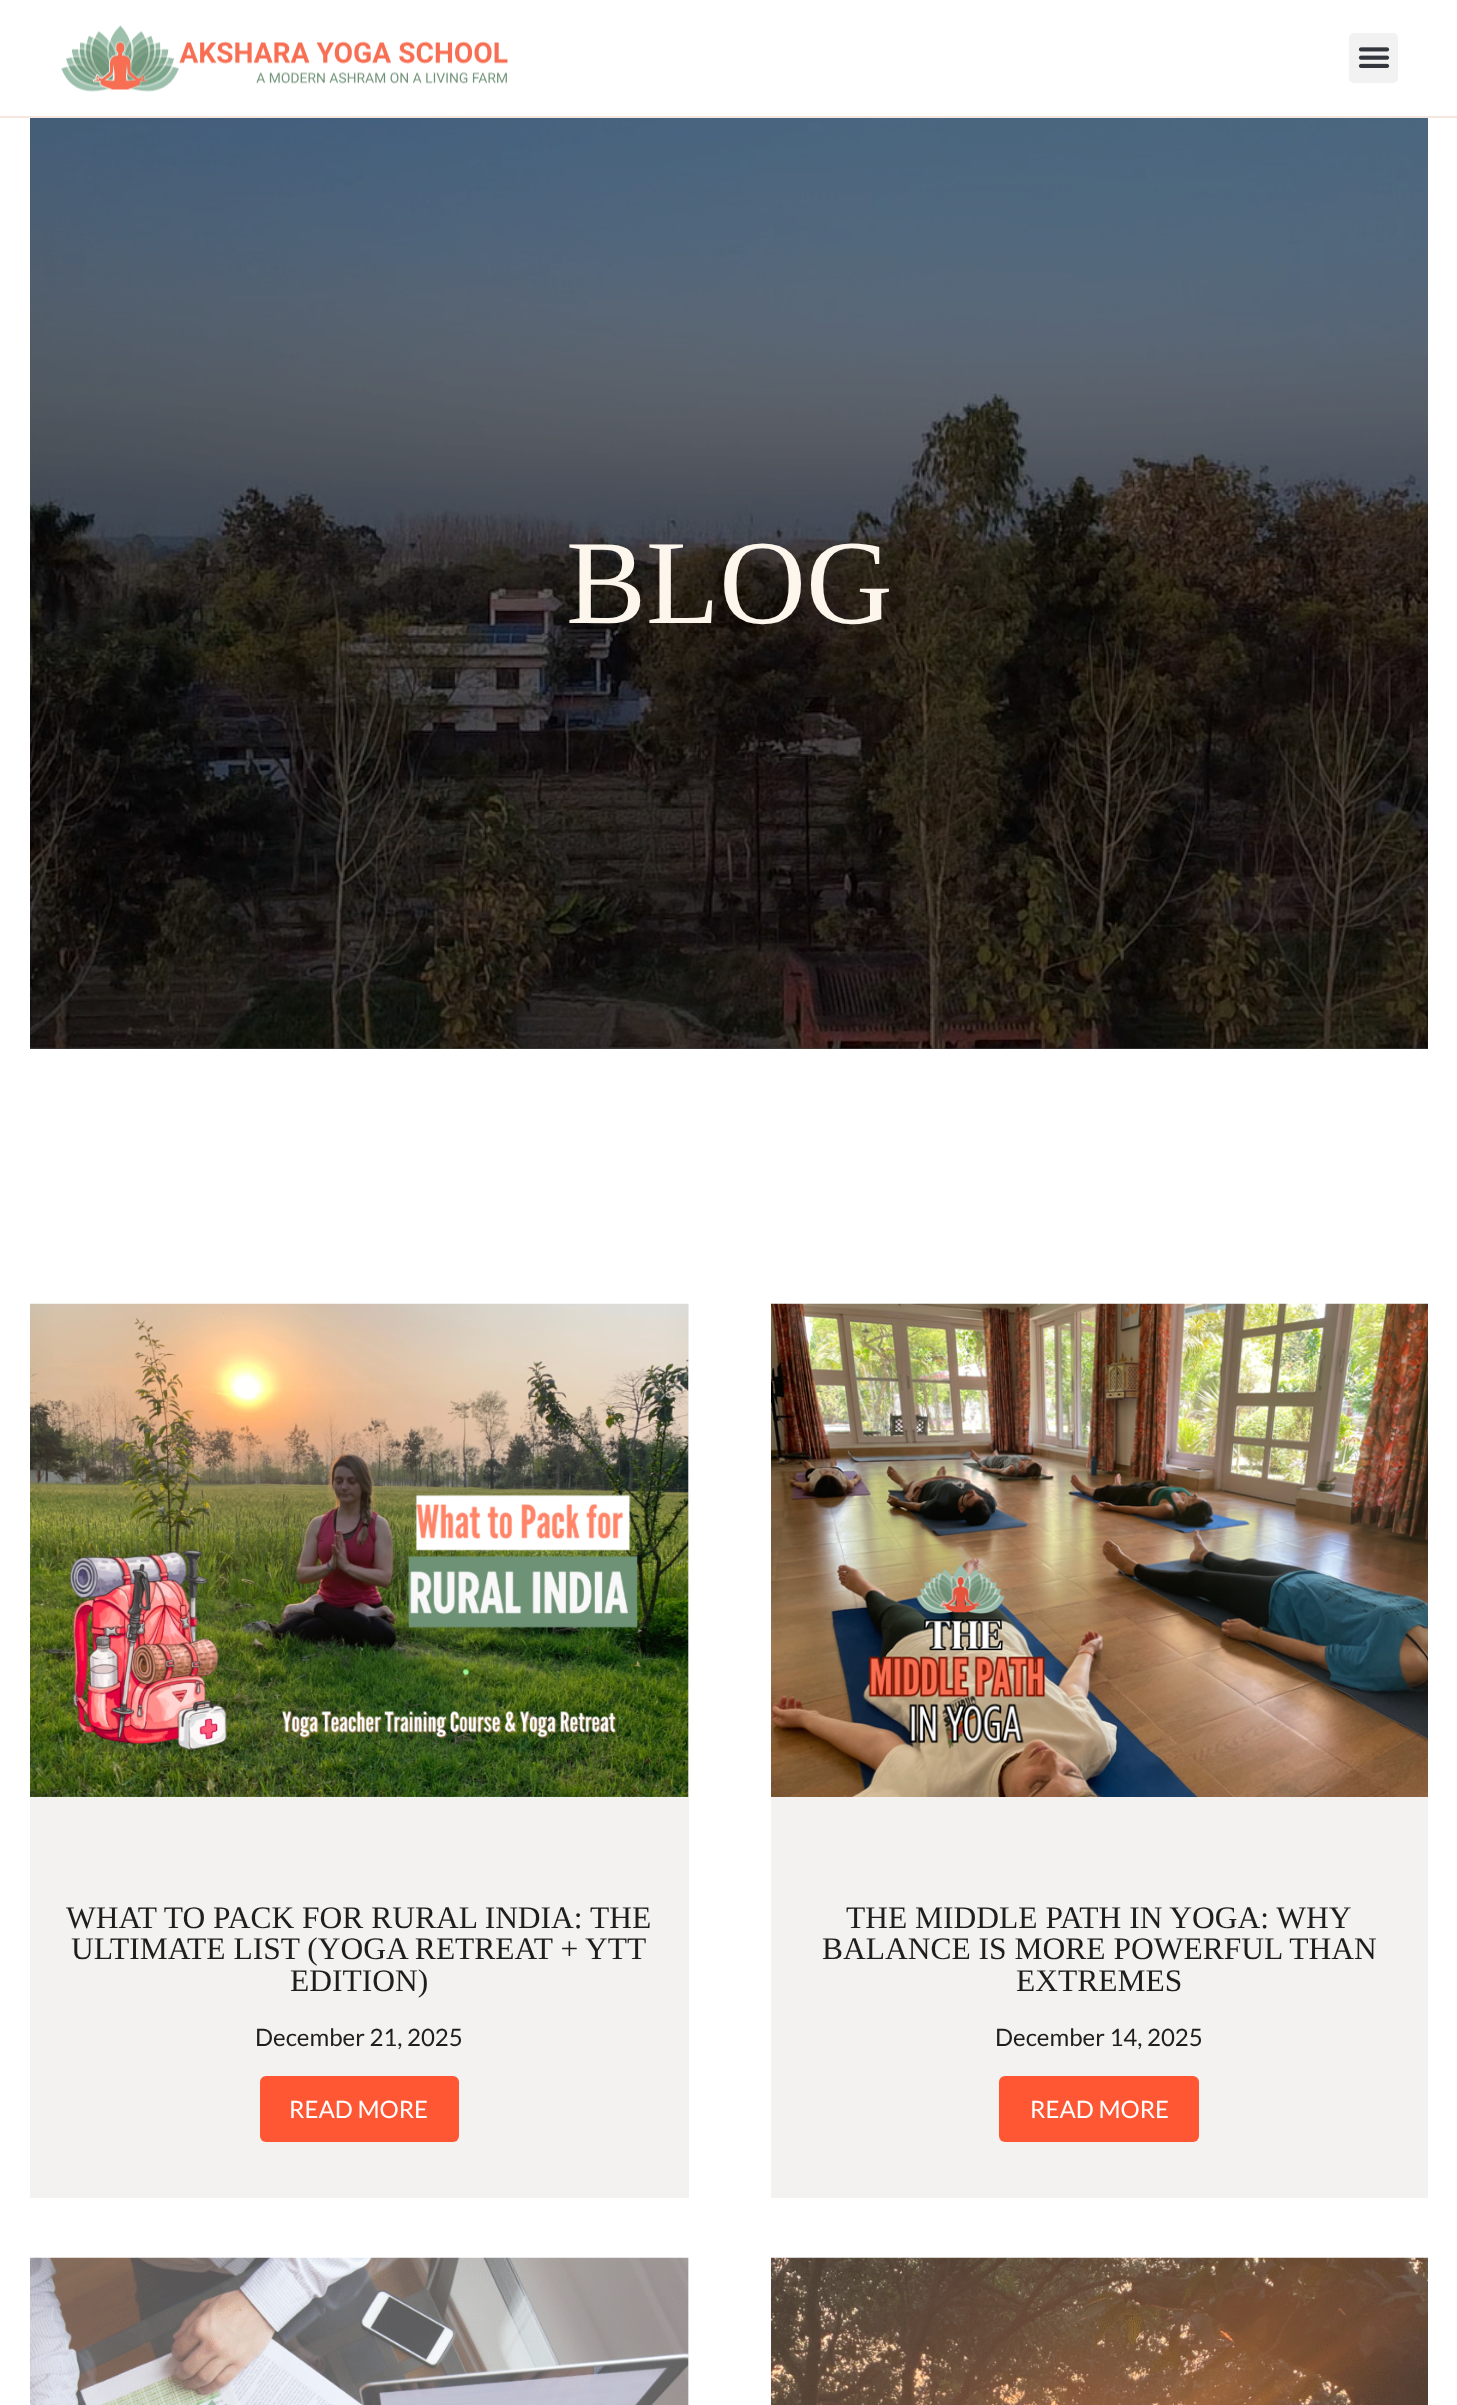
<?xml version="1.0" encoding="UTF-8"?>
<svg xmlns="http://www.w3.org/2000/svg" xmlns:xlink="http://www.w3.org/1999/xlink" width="1457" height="2405">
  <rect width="100%" height="100%" fill="#ffffff" />
  <rect y="116" width="1457" height="2" fill="#f5e7e0" />
  <image x="61" y="25" width="447" height="67" xlink:href="image1.png" />
  <rect x="1349" y="33" width="49" height="50" rx="5" fill="#f2f2f2" />
  <image x="1358" y="47" width="32" height="21" xlink:href="image2.png" />
  <rect x="30" y="1048" width="1398" height="1" fill="#404040" />
  <image x="30" y="118" width="1398" height="931" xlink:href="image3.png" />
  <rect x="30" y="1304" width="659" height="894" fill="#f4f2f1" />
  <image x="30" y="1303" width="659" height="494" xlink:href="image4.png" />
  <rect x="260" y="2076" width="199" height="66" rx="6" fill="#ff5733" />
  <rect x="771" y="1797" width="657" height="401" fill="#f4f2f1" />
  <image x="771" y="1303" width="657" height="494" xlink:href="image5.png" />
  <rect x="999" y="2076" width="200" height="66" rx="6" fill="#ff5733" />
  <rect x="688" y="2258" width="1" height="147" fill="#f4f2f1" />
  <image x="30" y="2257" width="659" height="148" xlink:href="image6.png" />
  <image x="771" y="2257" width="657" height="148" xlink:href="image7.png" />
  <text x="566" y="623" style="font-family: Liberation Serif; font-size: 120px; fill: #fdf6ed">BLOG</text>
  <text x="66" y="1928" style="font-family: Liberation Serif; font-size: 31.5px; fill: #1e1e1e">WHAT TO PACK FOR RURAL INDIA: THE</text>
  <text x="71" y="1959" style="font-family: Liberation Serif; font-size: 31.5px; fill: #1e1e1e">ULTIMATE LIST (YOGA RETREAT + YTT</text>
  <text x="290" y="1991" style="font-family: Liberation Serif; font-size: 31.5px; fill: #1e1e1e">EDITION)</text>
  <text x="255" y="2046" style="font-family: Lato; font-size: 24px; fill: #1e1e1e">December 21, 2025</text>
  <text x="289" y="2118" style="font-family: Lato; font-size: 24px; fill: #ffffff">READ MORE</text>
  <text x="846" y="1928" style="font-family: Liberation Serif; font-size: 31.5px; fill: #1e1e1e">THE MIDDLE PATH IN YOGA: WHY</text>
  <text x="822" y="1959" style="font-family: Liberation Serif; font-size: 31.5px; fill: #1e1e1e">BALANCE IS MORE POWERFUL THAN</text>
  <text x="1016" y="1991" style="font-family: Liberation Serif; font-size: 31.5px; fill: #1e1e1e">EXTREMES</text>
  <text x="995" y="2046" style="font-family: Lato; font-size: 24px; fill: #1e1e1e">December 14, 2025</text>
  <text x="1030" y="2118" style="font-family: Lato; font-size: 24px; fill: #ffffff">READ MORE</text>
</svg>
